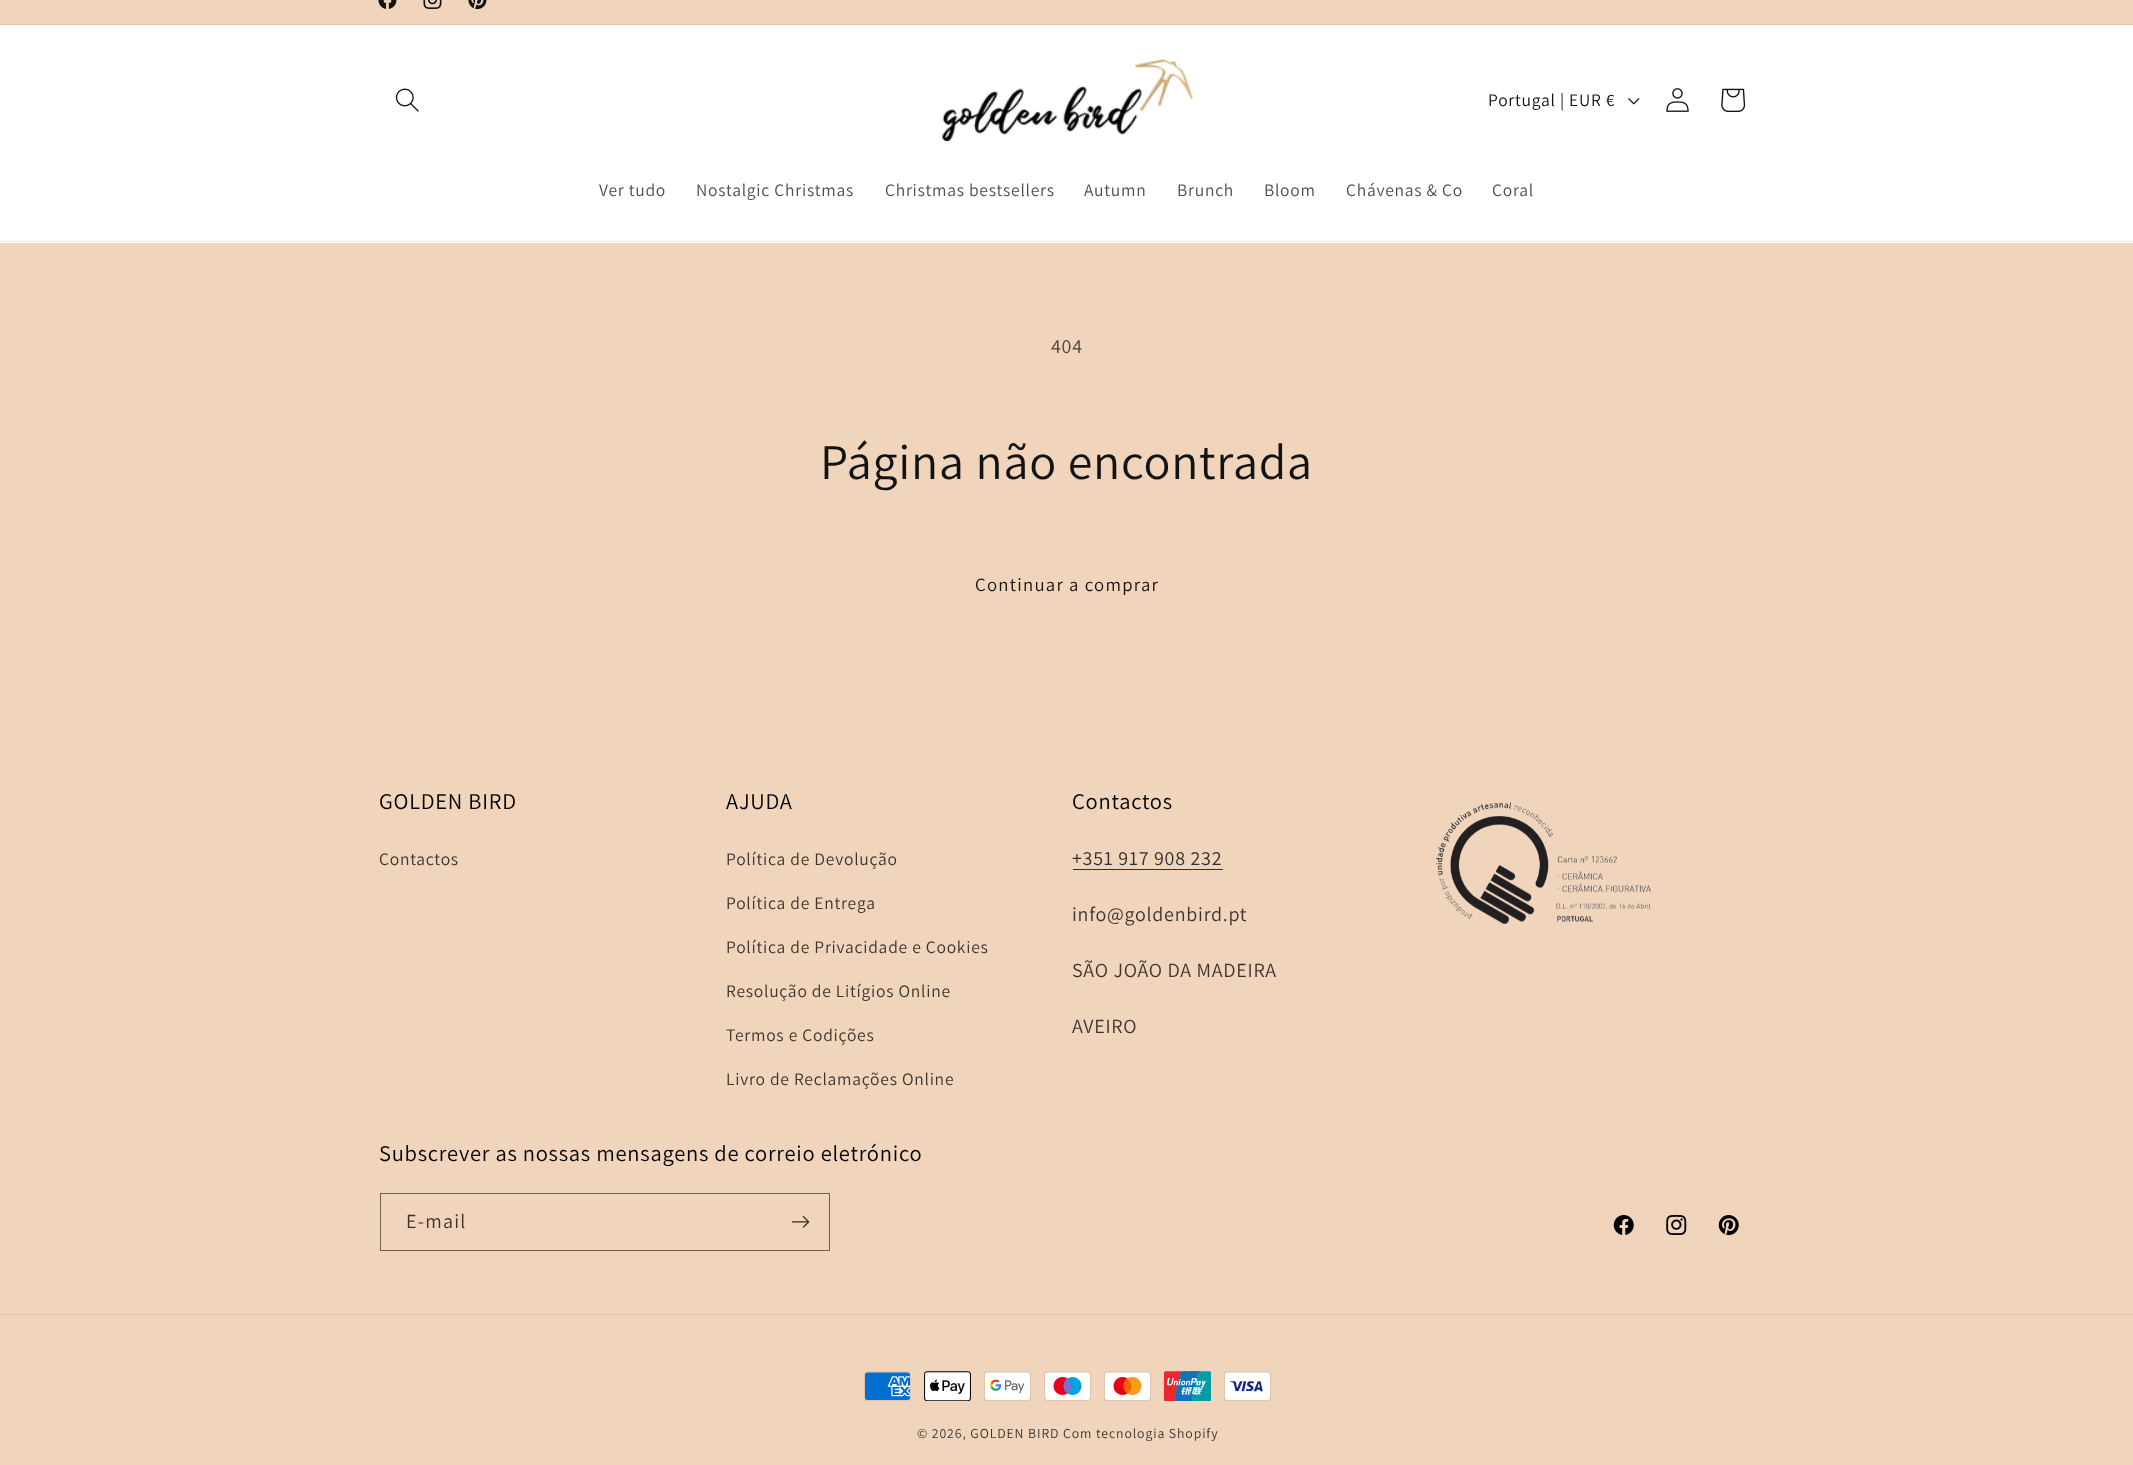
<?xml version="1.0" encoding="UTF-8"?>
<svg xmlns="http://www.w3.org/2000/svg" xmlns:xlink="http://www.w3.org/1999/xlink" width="2133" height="1465">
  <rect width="100%" height="100%" fill="#f0d4bc" />
  <rect y="24" width="2133" height="1" fill="#dec4ae" />
  <image x="378" y="0" width="19" height="9" xlink:href="image1.png" />
  <image x="423" y="0" width="19" height="9" xlink:href="image2.png" />
  <image x="468" y="0" width="19" height="10" xlink:href="image3.png" />
  <rect y="25" width="2133" height="218" fill="#ffffff" />
  <rect y="241" width="2133" height="1" fill="#ececec" />
  <image x="395" y="88" width="24" height="24" xlink:href="image4.png" />
  <image x="942" y="59" width="251" height="82" xlink:href="image5.png" />
  <image x="1628" y="98" width="12" height="7" xlink:href="image6.png" />
  <image x="1666" y="88" width="23" height="24" xlink:href="image7.png" />
  <image x="1721" y="88" width="25" height="24" xlink:href="image8.png" />
  <rect x="1073" y="869" width="150" height="1" fill="#332f2c" />
  <image x="1436" y="802" width="215" height="122" xlink:href="image9.png" />
  <rect x="380.5" y="1193.5" width="449" height="57" fill="none" stroke="#6c5f55" />
  <image x="792" y="1215" width="18" height="13" xlink:href="image10.png" />
  <image x="1613" y="1215" width="21" height="20" xlink:href="image11.png" />
  <image x="1666" y="1215" width="21" height="20" xlink:href="image12.png" />
  <image x="1718" y="1215" width="21" height="21" xlink:href="image13.png" />
  <rect y="1314" width="2133" height="1" fill="#ddc3ad" />
  <image x="864" y="1371" width="47" height="30" xlink:href="image14.png" />
  <image x="924" y="1371" width="47" height="30" xlink:href="image15.png" />
  <image x="984" y="1371" width="47" height="30" xlink:href="image16.png" />
  <image x="1044" y="1371" width="47" height="30" xlink:href="image17.png" />
  <image x="1104" y="1371" width="47" height="30" xlink:href="image18.png" />
  <image x="1164" y="1371" width="47" height="30" xlink:href="image19.png" />
  <image x="1224" y="1371" width="47" height="30" xlink:href="image20.png" />
  <text x="1488" y="106" style="font-family: Assistant; font-size: 17.5px; letter-spacing: 0.75px; fill: #121212">Portugal | EUR €</text>
  <text x="599" y="196" style="font-family: Assistant; font-size: 17.5px; letter-spacing: 0.75px; fill: #4d4d4d">Ver tudo</text>
  <text x="696" y="196" style="font-family: Assistant; font-size: 17.5px; letter-spacing: 0.75px; fill: #4d4d4d">Nostalgic Christmas</text>
  <text x="885" y="196" style="font-family: Assistant; font-size: 17.5px; letter-spacing: 0.75px; fill: #4d4d4d">Christmas bestsellers</text>
  <text x="1084" y="196" style="font-family: Assistant; font-size: 17.5px; letter-spacing: 0.75px; fill: #4d4d4d">Autumn</text>
  <text x="1177" y="196" style="font-family: Assistant; font-size: 17.5px; letter-spacing: 0.75px; fill: #4d4d4d">Brunch</text>
  <text x="1264" y="196" style="font-family: Assistant; font-size: 17.5px; letter-spacing: 0.75px; fill: #4d4d4d">Bloom</text>
  <text x="1346" y="196" style="font-family: Assistant; font-size: 17.5px; letter-spacing: 0.75px; fill: #4d4d4d">Chávenas &amp; Co</text>
  <text x="1492" y="196" style="font-family: Assistant; font-size: 17.5px; letter-spacing: 0.75px; fill: #4d4d4d">Coral</text>
  <text x="1051" y="353" style="font-family: Assistant; font-size: 20px; letter-spacing: 0.75px; fill: #4a433d">404</text>
  <text x="820" y="479" style="font-family: Assistant; font-size: 50px; letter-spacing: 0.75px; fill: #121212">Página não encontrada</text>
  <text x="975" y="591" style="font-family: Assistant; font-size: 18.75px; letter-spacing: 1.25px; fill: #121212">Continuar a comprar</text>
  <text x="379" y="809" style="font-family: Assistant; font-size: 22.5px; letter-spacing: 0.75px; fill: #000000">GOLDEN BIRD</text>
  <text x="379" y="865" style="font-family: Assistant; font-size: 17.5px; letter-spacing: 0.75px; fill: #3c352f">Contactos</text>
  <text x="726" y="809" style="font-family: Assistant; font-size: 22.5px; letter-spacing: 0.75px; fill: #000000">AJUDA</text>
  <text x="726" y="865" style="font-family: Assistant; font-size: 17.5px; letter-spacing: 0.75px; fill: #3c352f">Política de Devolução</text>
  <text x="726" y="909" style="font-family: Assistant; font-size: 17.5px; letter-spacing: 0.75px; fill: #3c352f">Política de Entrega</text>
  <text x="726" y="953" style="font-family: Assistant; font-size: 17.5px; letter-spacing: 0.75px; fill: #3c352f">Política de Privacidade e Cookies</text>
  <text x="726" y="997" style="font-family: Assistant; font-size: 17.5px; letter-spacing: 0.75px; fill: #3c352f">Resolução de Litígios Online</text>
  <text x="726" y="1041" style="font-family: Assistant; font-size: 17.5px; letter-spacing: 0.75px; fill: #3c352f">Termos e Codições</text>
  <text x="726" y="1085" style="font-family: Assistant; font-size: 17.5px; letter-spacing: 0.75px; fill: #3c352f">Livro de Reclamações Online</text>
  <text x="1072" y="809" style="font-family: Assistant; font-size: 22.5px; letter-spacing: 0.75px; fill: #000000">Contactos</text>
  <text x="1072" y="865" style="font-family: Assistant; font-size: 20px; letter-spacing: 0.75px; fill: #332f2c">+351 917 908 232</text>
  <text x="1072" y="921" style="font-family: Assistant; font-size: 20px; letter-spacing: 0.75px; fill: #3c352f">info@goldenbird.pt</text>
  <text x="1072" y="977" style="font-family: Assistant; font-size: 20px; letter-spacing: 0.75px; fill: #3c352f">SÃO JOÃO DA MADEIRA</text>
  <text x="1072" y="1033" style="font-family: Assistant; font-size: 20px; letter-spacing: 0.75px; fill: #3c352f">AVEIRO</text>
  <text x="379" y="1161" style="font-family: Assistant; font-size: 22.5px; letter-spacing: 0.75px; fill: #000000">Subscrever as nossas mensagens de correio eletrónico</text>
  <text x="406" y="1228" style="font-family: Assistant; font-size: 20px; letter-spacing: 1.25px; fill: #3c352f">E-mail</text>
  <text x="917" y="1438" style="font-family: Assistant; font-size: 13.75px; letter-spacing: 0.9px; fill: #3c352f">© 2026, GOLDEN BIRD Com tecnologia Shopify</text>
</svg>
